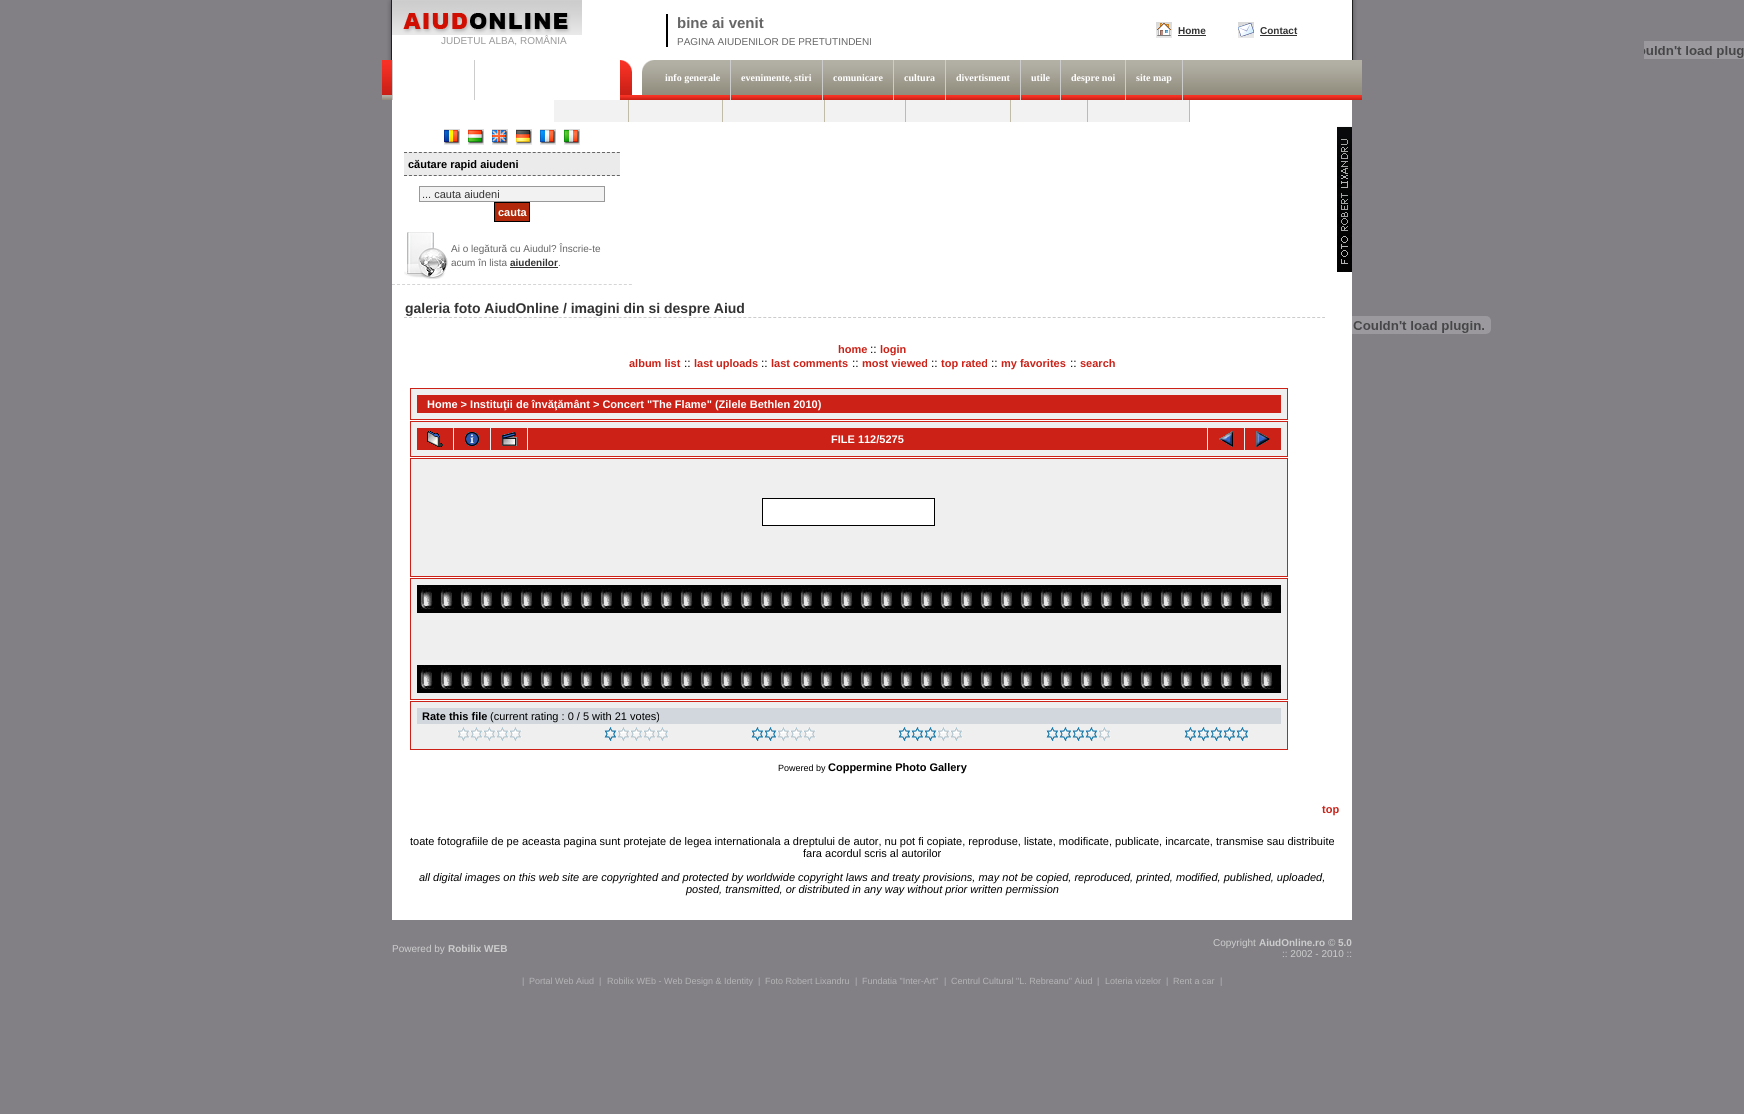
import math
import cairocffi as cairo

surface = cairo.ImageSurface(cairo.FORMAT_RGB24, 1744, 1114)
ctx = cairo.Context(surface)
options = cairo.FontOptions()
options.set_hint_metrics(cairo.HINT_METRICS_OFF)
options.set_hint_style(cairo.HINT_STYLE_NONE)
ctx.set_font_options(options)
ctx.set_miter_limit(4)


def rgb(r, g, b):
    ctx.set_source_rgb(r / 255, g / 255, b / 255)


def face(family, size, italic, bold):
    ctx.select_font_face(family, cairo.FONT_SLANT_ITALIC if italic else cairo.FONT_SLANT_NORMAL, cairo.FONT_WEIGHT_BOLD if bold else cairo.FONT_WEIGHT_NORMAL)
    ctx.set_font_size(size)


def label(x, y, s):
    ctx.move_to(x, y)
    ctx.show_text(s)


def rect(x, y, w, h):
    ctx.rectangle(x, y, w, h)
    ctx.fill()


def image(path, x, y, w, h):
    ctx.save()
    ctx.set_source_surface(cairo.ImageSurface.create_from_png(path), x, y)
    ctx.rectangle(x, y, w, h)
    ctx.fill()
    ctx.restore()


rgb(130, 128, 133)
ctx.paint()
image('image0.png', 382, 0, 10, 100)
rgb(255, 255, 255)
rect(392, 0, 960, 920)
rgb(0, 0, 0)
rect(666, 14, 2, 33)
face('Liberation Sans', 15, 0, 1)
rgb(102, 102, 102)
label(677, 28, 'bine ai venit')
face('Liberation Sans', 10, 0, 0)
label(677, 45, 'PAGINA AIUDENILOR DE PRETUTINDENI')
image('image1.png', 1156, 22, 16, 16)
face('Liberation Sans', 10, 0, 1)
rgb(51, 51, 51)
label(1178, 34, 'Home')
rect(1178, 35, 28, 1)
image('image2.png', 1238, 22, 16, 16)
label(1260, 34, 'Contact')
rect(1260, 35, 37, 1)
image('image3.png', 392, 0, 190, 35)
face('Liberation Sans', 10, 0, 0)
rgb(153, 153, 153)
label(441, 44, 'JUDETUL ALBA, ROMÂNIA')
rgb(204, 204, 204)
rect(392, 60, 1, 40)
rect(474, 60, 1, 40)
image('image4.png', 620, 60, 12, 40)
image('image5.png', 632, 60, 23, 40)
image('image6.png', 632, 60, 22, 35)
image('image7.png', 655, 60, 693, 40)
rect(730, 60, 1, 40)
face('Liberation Serif', 10, 0, 1)
rgb(255, 255, 255)
label(665, 81, 'info generale')
rgb(204, 204, 204)
rect(822, 60, 1, 40)
rgb(255, 255, 255)
label(741, 81, 'evenimente, stiri')
rgb(204, 204, 204)
rect(893, 60, 1, 40)
rgb(255, 255, 255)
label(833, 81, 'comunicare')
rgb(204, 204, 204)
rect(945, 60, 1, 40)
rgb(255, 255, 255)
label(904, 81, 'cultura')
rgb(204, 204, 204)
rect(1020, 60, 1, 40)
rgb(255, 255, 255)
label(956, 81, 'divertisment')
rgb(204, 204, 204)
rect(1060, 60, 1, 40)
rgb(255, 255, 255)
label(1031, 81, 'utile')
rgb(204, 204, 204)
rect(1125, 60, 1, 40)
rgb(255, 255, 255)
label(1071, 81, 'despre noi')
rgb(204, 204, 204)
rect(1182, 60, 1, 40)
rgb(255, 255, 255)
label(1136, 81, 'site map')
image('image8.png', 1348, 60, 4, 40)
rgb(242, 242, 242)
rect(554, 100, 635, 22)
rgb(193, 188, 167)
rect(628, 100, 1, 22)
rect(722, 100, 1, 22)
rect(824, 100, 1, 22)
rect(905, 100, 1, 22)
rect(1010, 100, 1, 22)
rect(1087, 100, 1, 22)
rect(1189, 100, 1, 22)
ctx.new_path()
ctx.move_to(392, 284.5)
ctx.line_to(632, 284.5)
rgb(213, 213, 213)
ctx.set_line_width(1)
ctx.set_dash([3, 2.04])
ctx.stroke()
image('image9.png', 444, 129, 16, 16)
image('image10.png', 468, 129, 16, 16)
image('image11.png', 492, 129, 16, 16)
image('image12.png', 516, 129, 16, 16)
image('image13.png', 540, 129, 16, 16)
image('image14.png', 564, 129, 16, 16)
rgb(235, 235, 235)
rect(404, 152, 216, 24)
ctx.new_path()
ctx.move_to(404, 152.5)
ctx.line_to(620, 152.5)
rgb(102, 102, 102)
ctx.set_dash([3, 1.95])
ctx.stroke()
ctx.new_path()
ctx.move_to(404, 175.5)
ctx.line_to(620, 175.5)
ctx.stroke()
face('Liberation Sans', 11, 0, 1)
rgb(0, 0, 0)
label(408, 168, 'căutare rapid aiudeni')
rgb(242, 242, 242)
ctx.rectangle(419.5, 186.5, 185, 15)
ctx.fill_preserve()
rgb(153, 153, 153)
ctx.set_dash([])
ctx.stroke()
face('Liberation Sans', 11, 0, 0)
rgb(51, 51, 51)
label(422, 198, '... cauta aiudeni')
rgb(177, 41, 10)
ctx.rectangle(494.5, 202.5, 35, 19)
ctx.fill_preserve()
rgb(0, 0, 0)
ctx.stroke()
face('Liberation Sans', 11, 0, 1)
rgb(255, 255, 255)
label(498, 216, 'cauta')
image('image15.png', 404, 232, 44, 47)
face('Liberation Sans', 10, 0, 0)
rgb(102, 102, 102)
label(451, 252, 'Ai o legătură cu Aiudul? Înscrie-te')
label(451, 266, 'acum în lista')
face('Liberation Sans', 10, 0, 1)
rgb(51, 51, 51)
label(510, 266, 'aiudenilor')
rect(510, 267, 48, 1)
face('Liberation Sans', 10, 0, 0)
rgb(102, 102, 102)
label(558, 266, '.')
image('image16.png', 1337, 126, 15, 146)
ctx.new_path()
ctx.move_to(404, 317.5)
ctx.line_to(1325, 317.5)
rgb(204, 204, 204)
ctx.set_dash([3, 1.99])
ctx.stroke()
face('Liberation Sans', 14, 0, 1)
rgb(51, 51, 51)
label(405, 313, 'galeria foto AiudOnline / imagini din si despre Aiud')
face('Liberation Sans', 11, 0, 1)
rgb(203, 33, 23)
label(838, 353, 'home')
face('Liberation Sans', 12, 0, 0)
rgb(0, 0, 0)
label(870, 353, '::')
face('Liberation Sans', 11, 0, 1)
rgb(203, 33, 23)
label(880, 353, 'login')
label(629, 367, 'album list')
face('Liberation Sans', 12, 0, 0)
rgb(0, 0, 0)
label(684, 367, '::')
face('Liberation Sans', 11, 0, 1)
rgb(203, 33, 23)
label(694, 367, 'last uploads')
face('Liberation Sans', 12, 0, 0)
rgb(0, 0, 0)
label(761, 367, '::')
face('Liberation Sans', 11, 0, 1)
rgb(203, 33, 23)
label(771, 367, 'last comments')
face('Liberation Sans', 12, 0, 0)
rgb(0, 0, 0)
label(852, 367, '::')
face('Liberation Sans', 11, 0, 1)
rgb(203, 33, 23)
label(862, 367, 'most viewed')
face('Liberation Sans', 12, 0, 0)
rgb(0, 0, 0)
label(931, 367, '::')
face('Liberation Sans', 11, 0, 1)
rgb(203, 33, 23)
label(941, 367, 'top rated')
face('Liberation Sans', 12, 0, 0)
rgb(0, 0, 0)
label(991, 367, '::')
face('Liberation Sans', 11, 0, 1)
rgb(203, 33, 23)
label(1001, 367, 'my favorites')
face('Liberation Sans', 12, 0, 0)
rgb(0, 0, 0)
label(1070, 367, '::')
face('Liberation Sans', 11, 0, 1)
rgb(203, 33, 23)
label(1080, 367, 'search')
rgb(239, 239, 239)
ctx.rectangle(410.5, 388.5, 877, 31)
ctx.fill_preserve()
rgb(203, 33, 23)
ctx.set_dash([])
ctx.stroke()
rect(417, 395, 864, 18)
rgb(255, 255, 255)
label(427, 408, 'Home > Instituţii de învăţământ > Concert "The Flame" (Zilele Bethlen 2010)')
rgb(239, 239, 239)
ctx.rectangle(410.5, 421.5, 877, 35)
ctx.fill_preserve()
rgb(203, 33, 23)
ctx.stroke()
rect(417, 428, 36, 22)
image('image17.png', 427, 431, 16, 16)
rect(454, 428, 36, 22)
image('image18.png', 465, 432, 14, 14)
rect(491, 428, 36, 22)
image('image19.png', 502, 432, 15, 14)
rect(528, 428, 679, 22)
rgb(255, 255, 255)
label(831, 443, 'FILE 112/5275')
rgb(203, 33, 23)
rect(1208, 428, 36, 22)
image('image20.png', 1219, 431, 14, 16)
rect(1245, 428, 36, 22)
image('image21.png', 1256, 431, 14, 16)
rgb(239, 239, 239)
ctx.rectangle(410.5, 458.5, 877, 118)
ctx.fill_preserve()
rgb(203, 33, 23)
ctx.stroke()
rgb(255, 255, 255)
ctx.rectangle(762.5, 498.5, 172, 27)
ctx.fill_preserve()
rgb(0, 0, 0)
ctx.stroke()
rgb(239, 239, 239)
ctx.rectangle(410.5, 578.5, 877, 121)
ctx.fill_preserve()
rgb(203, 33, 23)
ctx.stroke()
image('image22.png', 417, 585, 864, 28)
image('image22.png', 417, 665, 864, 28)
rgb(239, 239, 239)
ctx.rectangle(410.5, 701.5, 877, 48)
ctx.fill_preserve()
rgb(203, 33, 23)
ctx.stroke()
rgb(209, 215, 220)
rect(417, 708, 864, 16)
rgb(0, 0, 0)
label(422, 720, 'Rate this file')
face('Liberation Sans', 11, 0, 0)
label(490, 720, '(current rating : 0 / 5 with 21 votes)')
image('image23.png', 457, 727, 65, 14)
image('image24.png', 604, 727, 65, 14)
image('image25.png', 751, 727, 65, 14)
image('image26.png', 898, 727, 65, 14)
image('image27.png', 1046, 727, 65, 14)
image('image28.png', 1184, 727, 65, 14)
face('Liberation Sans', 9, 0, 0)
label(778, 771, 'Powered by')
face('Liberation Sans', 11, 0, 1)
label(828, 771, 'Coppermine Photo Gallery')
rgb(203, 33, 23)
label(1322, 813, 'top')
face('Liberation Sans', 11, 0, 0)
rgb(0, 0, 0)
label(410, 845, 'toate fotografiile de pe aceasta pagina sunt protejate de legea internationala a dreptului de autor, nu pot fi copiate, reproduse, listate, modificate, publicate, incarcate, transmise sau distribuite')
label(803, 857, 'fara acordul scris al autorilor')
face('Liberation Sans', 11, 1, 0)
label(419, 881, 'all digital images on this web site are copyrighted and protected by worldwide copyright laws and treaty provisions, may not be copied, reproduced, printed, modified, published, uploaded,')
label(686, 893, 'posted, transmitted, or distributed in any way without prior written permission')
image('image29.png', 1352, 0, 10, 100)
image('image30.png', 1644, 41, 100, 18)
image('image31.png', 1352, 316, 139, 18)
face('Liberation Sans', 10, 0, 0)
rgb(204, 204, 204)
label(392, 952, 'Powered by')
face('Liberation Sans', 10, 0, 1)
label(448, 952, 'Robilix WEB')
face('Liberation Sans', 10, 0, 0)
label(1213, 946, 'Copyright')
face('Liberation Sans', 10, 0, 1)
label(1259, 946, 'AiudOnline.ro')
face('Liberation Sans', 10, 0, 0)
label(1328, 946, '©')
face('Liberation Sans', 10, 0, 1)
label(1338, 946, '5.0')
face('Liberation Sans', 10, 0, 0)
label(1282, 957, ':: 2002 - 2010 ::')
face('Liberation Sans', 9, 0, 0)
rgb(180, 179, 181)
label(522, 984, '|')
label(529, 984, 'Portal Web Aiud')
label(599, 984, '|')
label(607, 984, 'Robilix WEb - Web Design & Identity')
label(758, 984, '|')
label(765, 984, 'Foto Robert Lixandru')
label(855, 984, '|')
label(862, 984, 'Fundatia "Inter-Art"')
label(944, 984, '|')
label(951, 984, 'Centrul Cultural "L. Rebreanu" Aiud')
label(1097, 984, '|')
label(1105, 984, 'Loteria vizelor')
label(1166, 984, '|')
label(1173, 984, 'Rent a car')
label(1220, 984, '|')
surface.write_to_png('render.png')
